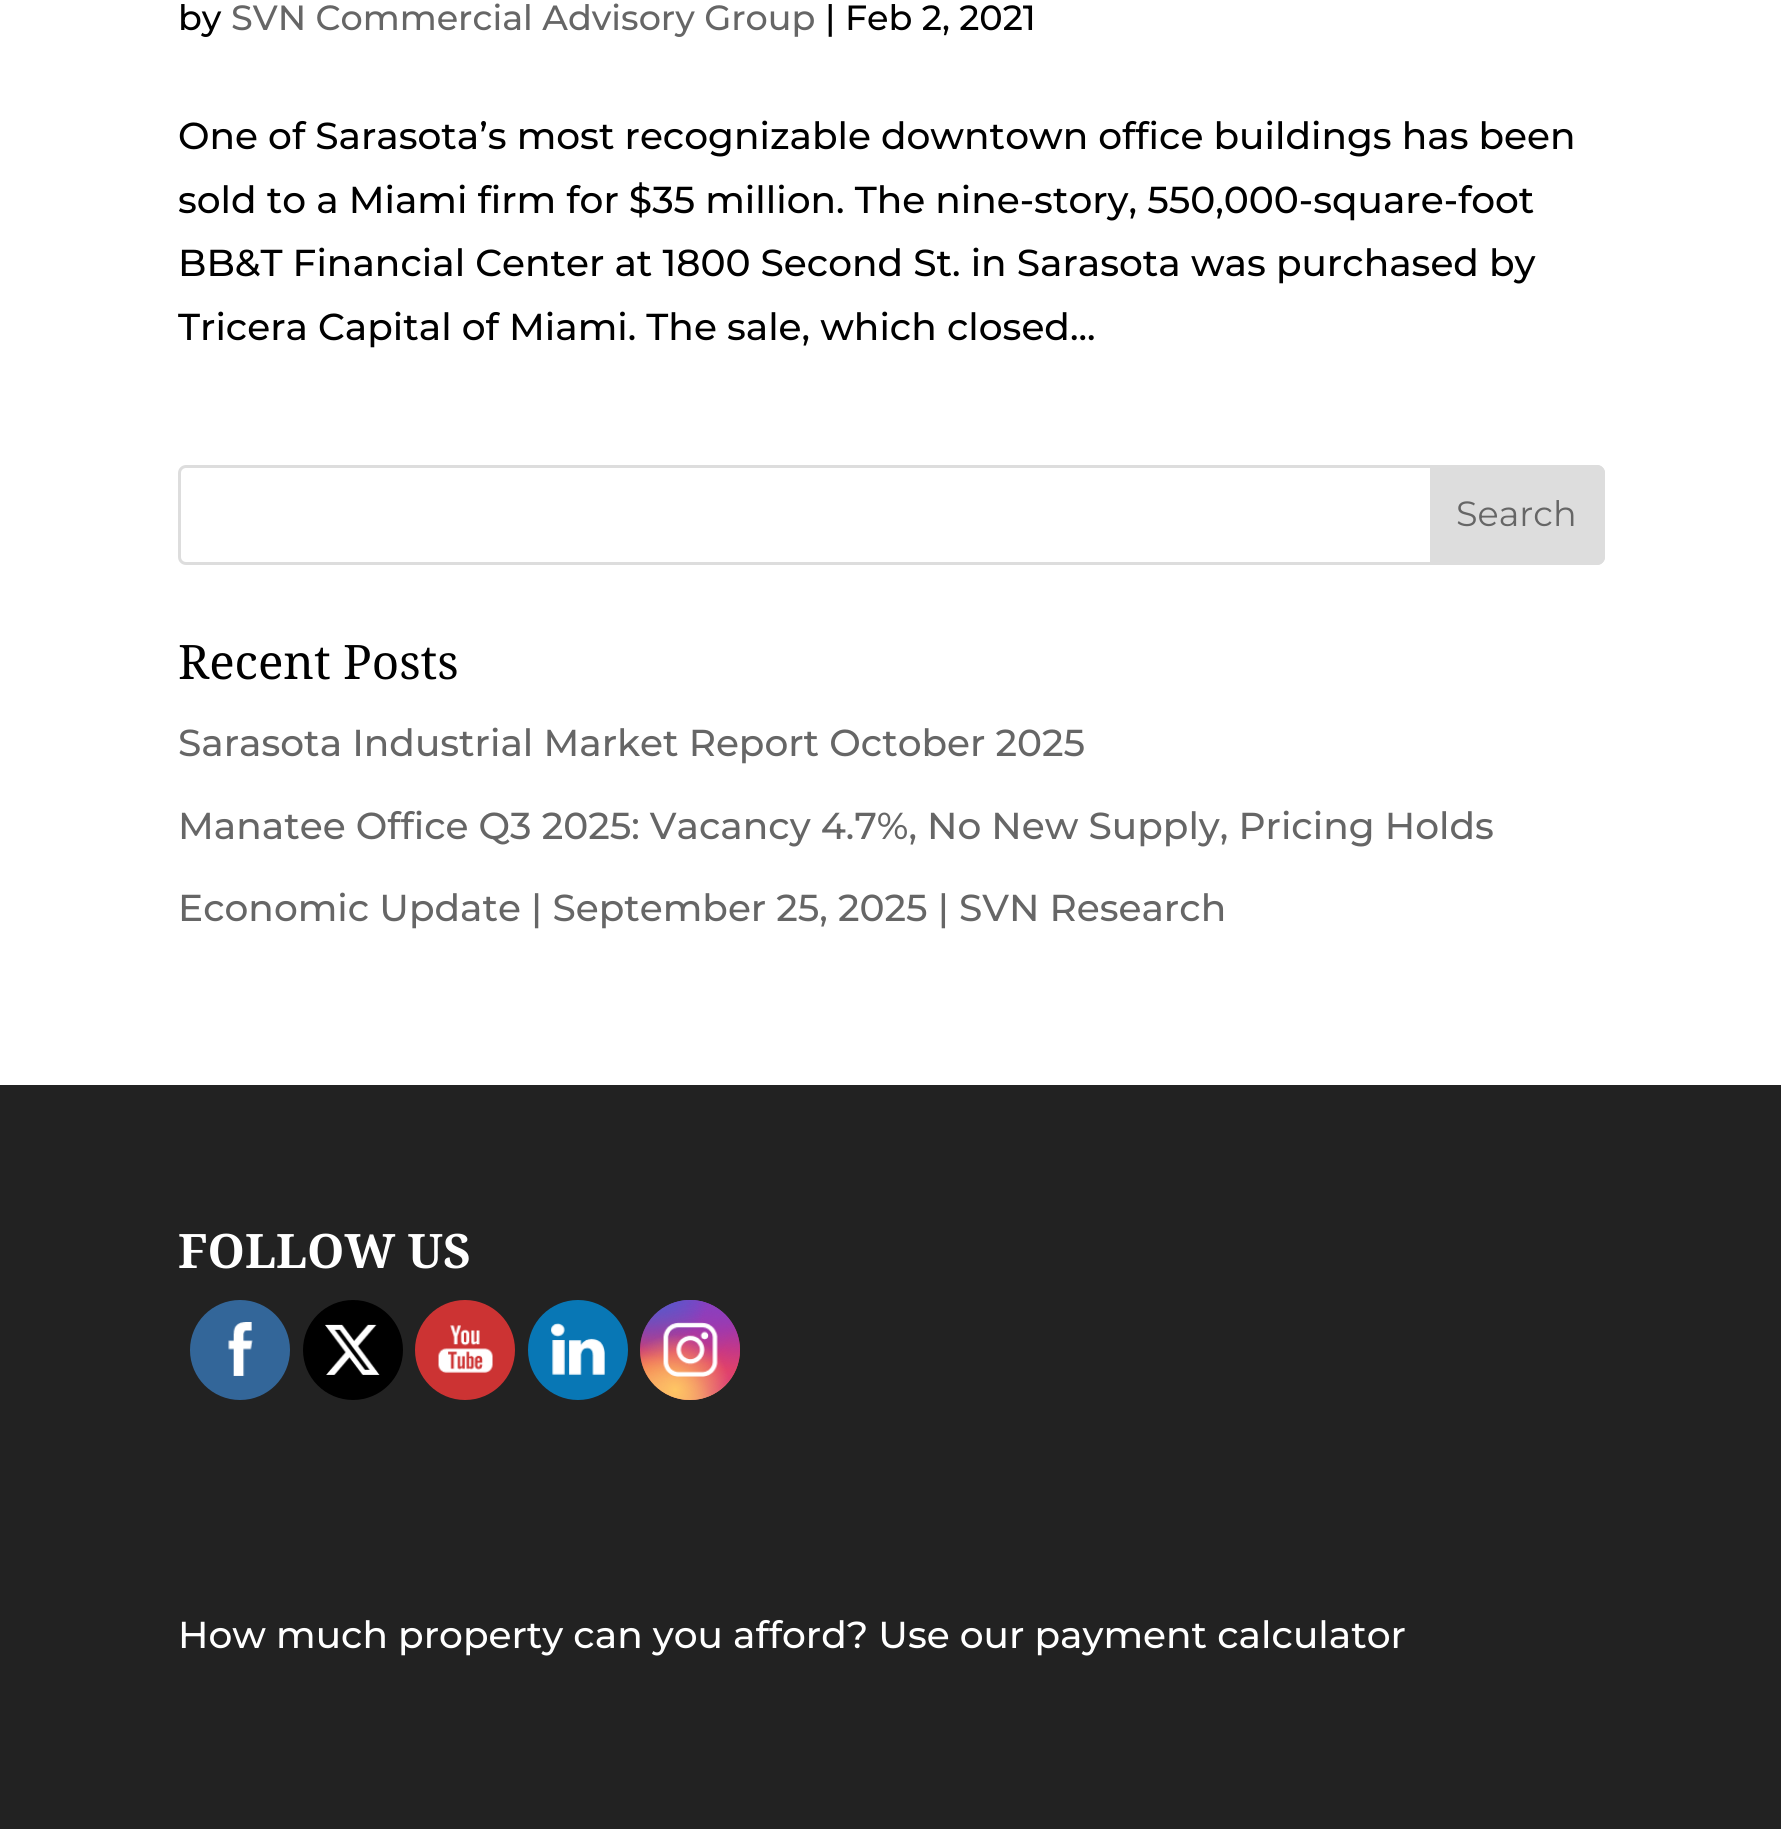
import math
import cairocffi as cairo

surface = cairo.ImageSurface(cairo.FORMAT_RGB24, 1781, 1829)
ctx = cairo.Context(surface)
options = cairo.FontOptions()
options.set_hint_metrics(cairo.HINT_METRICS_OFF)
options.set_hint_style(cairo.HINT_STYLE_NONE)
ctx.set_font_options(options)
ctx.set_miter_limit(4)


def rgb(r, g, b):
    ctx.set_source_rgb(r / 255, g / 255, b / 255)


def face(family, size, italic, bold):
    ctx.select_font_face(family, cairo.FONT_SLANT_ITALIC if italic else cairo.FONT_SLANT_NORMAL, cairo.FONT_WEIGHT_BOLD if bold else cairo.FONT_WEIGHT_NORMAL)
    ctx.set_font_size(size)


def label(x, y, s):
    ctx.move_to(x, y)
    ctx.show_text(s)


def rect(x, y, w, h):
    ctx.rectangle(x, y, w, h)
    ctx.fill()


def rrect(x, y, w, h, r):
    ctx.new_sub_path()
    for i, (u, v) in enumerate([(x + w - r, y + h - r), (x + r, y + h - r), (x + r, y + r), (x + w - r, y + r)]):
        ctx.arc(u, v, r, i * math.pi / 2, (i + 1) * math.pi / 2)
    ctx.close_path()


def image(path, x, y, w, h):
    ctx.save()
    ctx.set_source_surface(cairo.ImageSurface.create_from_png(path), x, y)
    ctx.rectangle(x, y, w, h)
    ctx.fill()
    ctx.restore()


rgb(255, 255, 255)
ctx.paint()
face('Montserrat Thin', 35, 0, 0)
rgb(0, 0, 0)
label(178, 30, 'by')
rgb(102, 102, 102)
label(231, 30, 'SVN Commercial Advisory Group')
rgb(0, 0, 0)
label(825, 30, '| Feb 2, 2021')
face('Montserrat Thin', 37.5, 0, 0)
label(178, 149, 'One of Sarasota’s most recognizable downtown office buildings has been')
label(178, 213, 'sold to a Miami firm for $35 million. The nine-story, 550,000-square-foot')
label(178, 276, 'BB&T Financial Center at 1800 Second St. in Sarasota was purchased by')
label(178, 340, 'Tricera Capital of Miami. The sale, which closed...')
rrect(179.5, 466.5, 1424, 97, 6.5)
rgb(221, 221, 221)
ctx.set_line_width(3)
ctx.stroke()
ctx.new_path()
ctx.move_to(1431.5, 466.5)
ctx.line_to(1597, 466.5)
ctx.curve_to(1600.5, 466.5, 1603.5, 469.5, 1603.5, 473)
ctx.line_to(1603.5, 557)
ctx.curve_to(1603.5, 560.5, 1600.5, 563.5, 1597, 563.5)
ctx.line_to(1431.5, 563.5)
ctx.close_path()
ctx.fill_preserve()
ctx.stroke()
face('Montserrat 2 Thin', 35, 0, 0)
rgb(102, 102, 102)
label(1456, 526, 'Search')
face('Noto Serif', 47.5, 0, 0)
rgb(0, 0, 0)
label(178, 679, 'Recent Posts')
face('Montserrat Thin', 37.5, 0, 0)
rgb(102, 102, 102)
label(178, 756, 'Sarasota Industrial Market Report October 2025')
label(178, 839, 'Manatee Office Q3 2025: Vacancy 4.7%, No New Supply, Pricing Holds')
label(178, 921, 'Economic Update | September 25, 2025 | SVN Research')
rgb(34, 34, 34)
rect(0, 1085, 1781, 744)
face('Noto Serif', 47.5, 0, 1)
rgb(255, 255, 255)
label(178, 1268, 'FOLLOW US')
rgb(51, 102, 153)
ctx.new_path()
ctx.arc(240, 1350, 50, 0, 2 * math.pi)
ctx.fill()
image('image0.png', 228, 1322, 25, 54)
rgb(0, 0, 0)
ctx.arc(353, 1350, 50, 0, 2 * math.pi)
ctx.fill()
image('image1.png', 325, 1324, 55, 51)
rgb(204, 51, 51)
ctx.arc(465, 1350, 50, 0, 2 * math.pi)
ctx.fill()
image('image2.png', 438, 1325, 55, 48)
rgb(8, 119, 181)
ctx.arc(578, 1350, 50, 0, 2 * math.pi)
ctx.fill()
image('image3.png', 551, 1323, 54, 52)
gradient = cairo.LinearGradient(690, 1300, 690, 1400)
gradient.add_color_stop_rgba(0, 0.396, 0.349, 0.792, 1)
gradient.add_color_stop_rgba(0.3, 0.737, 0.192, 0.561, 1)
gradient.add_color_stop_rgba(0.5, 0.89, 0.247, 0.373, 1)
gradient.add_color_stop_rgba(0.7, 0.969, 0.463, 0.22, 1)
gradient.add_color_stop_rgba(1, 0.996, 0.776, 0.427, 1)
ctx.set_source(gradient)
ctx.arc(690, 1350, 50, 0, 2 * math.pi)
ctx.fill()
gradient = cairo.RadialGradient(740, 1400, 0, 740, 1400, 141)
gradient.add_color_stop_rgba(0, 0.851, 0.192, 0.478, 1)
gradient.add_color_stop_rgba(1, 0.851, 0.192, 0.478, 0)
ctx.set_source(gradient)
ctx.arc(690, 1350, 50, 0, 2 * math.pi)
ctx.fill()
gradient = cairo.RadialGradient(0, 0, 0, 0, 0, 1)
gradient.set_matrix(cairo.Matrix(1 / 85, 0, 0, 1 / 170, -1 * 700 / 85, -1 * 1280 / 170))
gradient.add_color_stop_rgba(0, 0.537, 0.239, 0.761, 1)
gradient.add_color_stop_rgba(0.5, 0.537, 0.239, 0.761, 0)
ctx.set_source(gradient)
ctx.arc(690, 1350, 50, 0, 2 * math.pi)
ctx.fill()
gradient = cairo.RadialGradient(740, 1300, 0, 740, 1300, 141)
gradient.add_color_stop_rgba(0, 0.537, 0.239, 0.761, 1)
gradient.add_color_stop_rgba(0.5, 0.537, 0.239, 0.761, 0)
ctx.set_source(gradient)
ctx.arc(690, 1350, 50, 0, 2 * math.pi)
ctx.fill()
gradient = cairo.RadialGradient(0, 0, 0, 0, 0, 1)
gradient.set_matrix(cairo.Matrix(1 / 113, 0, 0, 1 / 212, -1 * 660 / 113, -1 * 1250 / 212))
gradient.add_color_stop_rgba(0, 0.322, 0.345, 0.812, 1)
gradient.add_color_stop_rgba(0.5, 0.322, 0.345, 0.812, 0)
ctx.set_source(gradient)
ctx.arc(690, 1350, 50, 0, 2 * math.pi)
ctx.fill()
gradient = cairo.RadialGradient(0, 0, 0, 0, 0, 1)
gradient.set_matrix(cairo.Matrix(1 / 141, 0, 0, 1 / 177, -1 * 640 / 141, -1 * 1275 / 177))
gradient.add_color_stop_rgba(0, 0.322, 0.345, 0.812, 1)
gradient.add_color_stop_rgba(0.5, 0.322, 0.345, 0.812, 0)
ctx.set_source(gradient)
ctx.arc(690, 1350, 50, 0, 2 * math.pi)
ctx.fill()
gradient = cairo.RadialGradient(640, 1440, 0, 640, 1440, 172)
gradient.add_color_stop_rgba(0, 0.996, 0.773, 0.392, 1)
gradient.add_color_stop_rgba(0.5, 0.996, 0.773, 0.392, 0)
ctx.set_source(gradient)
ctx.arc(690, 1350, 50, 0, 2 * math.pi)
ctx.fill()
gradient = cairo.RadialGradient(675, 1390, 0, 675, 1390, 111)
gradient.add_color_stop_rgba(0, 0.996, 0.773, 0.392, 1)
gradient.add_color_stop_rgba(0.5, 0.996, 0.773, 0.392, 0)
ctx.set_source(gradient)
ctx.arc(690, 1350, 50, 0, 2 * math.pi)
ctx.fill()
image('image4.png', 663, 1322, 55, 55)
face('Montserrat Thin', 37.5, 0, 0)
rgb(255, 255, 255)
label(178, 1648, 'How much property can you afford? Use our payment calculator')
surface.write_to_png('render.png')
